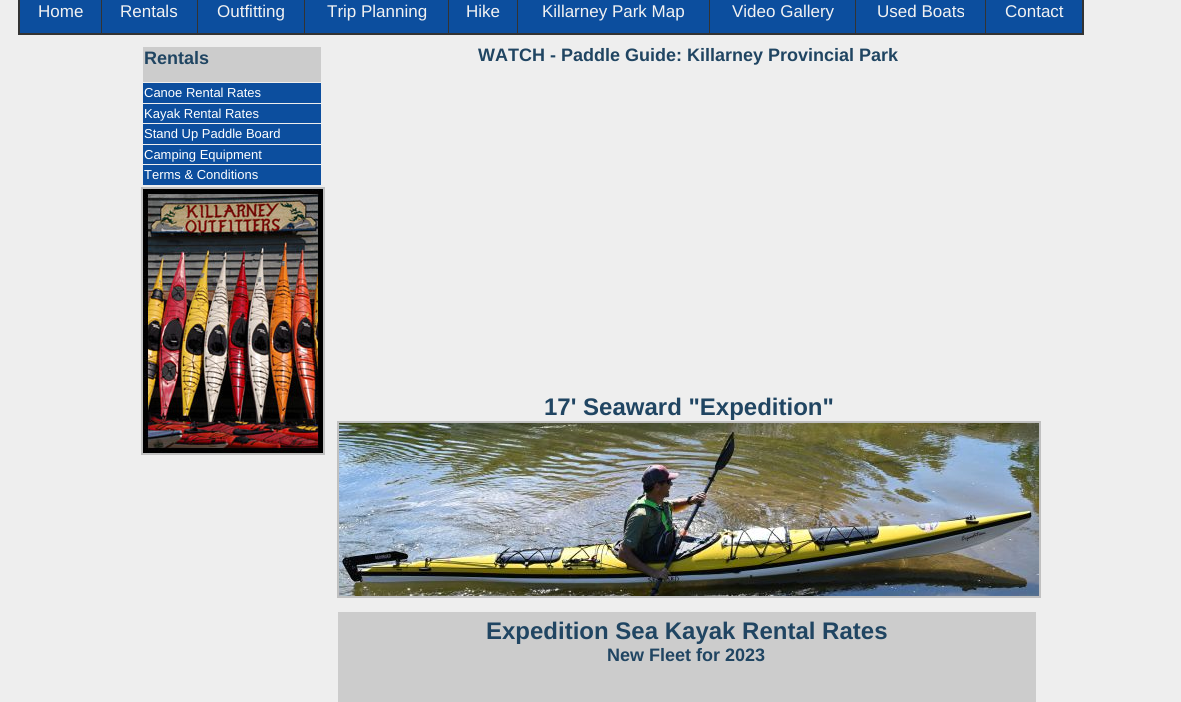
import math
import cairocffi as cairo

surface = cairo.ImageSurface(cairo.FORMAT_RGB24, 1181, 702)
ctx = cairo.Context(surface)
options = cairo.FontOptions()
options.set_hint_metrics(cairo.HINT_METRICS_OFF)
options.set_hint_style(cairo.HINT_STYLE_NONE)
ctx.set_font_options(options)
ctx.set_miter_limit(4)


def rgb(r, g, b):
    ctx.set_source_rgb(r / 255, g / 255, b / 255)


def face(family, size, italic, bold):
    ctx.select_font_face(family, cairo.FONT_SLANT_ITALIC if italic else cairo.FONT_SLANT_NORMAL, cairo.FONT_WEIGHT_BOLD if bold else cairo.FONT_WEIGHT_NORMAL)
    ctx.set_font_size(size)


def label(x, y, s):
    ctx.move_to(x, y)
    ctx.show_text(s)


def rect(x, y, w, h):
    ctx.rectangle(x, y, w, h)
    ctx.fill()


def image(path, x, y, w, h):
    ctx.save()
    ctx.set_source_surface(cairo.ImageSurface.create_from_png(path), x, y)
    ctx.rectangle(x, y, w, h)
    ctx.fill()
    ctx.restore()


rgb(238, 238, 238)
ctx.paint()
rgb(51, 51, 51)
rect(18, 0, 1066, 35)
rgb(12, 78, 158)
rect(20, 0, 81, 33)
face('Liberation Sans', 17, 0, 0)
rgb(242, 242, 242)
label(38, 17, 'Home')
rgb(12, 78, 158)
rect(102, 0, 95, 33)
rgb(242, 242, 242)
label(120, 17, 'Rentals')
rgb(12, 78, 158)
rect(198, 0, 106, 33)
rgb(242, 242, 242)
label(217, 17, 'Outfitting')
rgb(12, 78, 158)
rect(305, 0, 143, 33)
rgb(242, 242, 242)
label(327, 17, 'Trip Planning')
rgb(12, 78, 158)
rect(449, 0, 68, 33)
rgb(242, 242, 242)
label(466, 17, 'Hike')
rgb(12, 78, 158)
rect(518, 0, 191, 33)
rgb(242, 242, 242)
label(542, 17, 'Killarney Park Map')
rgb(12, 78, 158)
rect(710, 0, 145, 33)
rgb(242, 242, 242)
label(732, 17, 'Video Gallery')
rgb(12, 78, 158)
rect(856, 0, 129, 33)
rgb(242, 242, 242)
label(877, 17, 'Used Boats')
rgb(12, 78, 158)
rect(986, 0, 96, 33)
rgb(242, 242, 242)
label(1005, 17, 'Contact')
rgb(204, 204, 204)
rect(143, 47, 178, 35)
face('Liberation Sans', 18, 0, 1)
rgb(32, 69, 98)
label(144, 64, 'Rentals')
rgb(12, 78, 158)
rect(143, 83, 178, 20)
face('Liberation Sans', 13, 0, 0)
rgb(255, 255, 255)
label(144, 97, 'Canoe Rental Rates')
rgb(12, 78, 158)
rect(143, 104, 178, 19)
rgb(255, 255, 255)
label(144, 118, 'Kayak Rental Rates')
rgb(12, 78, 158)
rect(143, 124, 178, 20)
rgb(255, 255, 255)
label(144, 138, 'Stand Up Paddle Board')
rgb(12, 78, 158)
rect(143, 145, 178, 19)
rgb(255, 255, 255)
label(144, 159, 'Camping Equipment')
rgb(12, 78, 158)
rect(143, 165, 178, 20)
rgb(255, 255, 255)
label(144, 179, 'Terms & Conditions')
ctx.rectangle(142, 188, 182, 266)
rgb(192, 192, 192)
ctx.stroke()
image('image0.png', 143, 189, 180, 264)
face('Liberation Sans', 18, 0, 1)
rgb(32, 69, 98)
label(478, 61, 'WATCH - Paddle Guide: Killarney Provincial Park')
face('Liberation Sans', 24, 0, 1)
label(544, 415, '17\' Seaward "Expedition"')
ctx.rectangle(338, 422, 702, 175)
rgb(192, 192, 192)
ctx.stroke()
image('image1.png', 339, 423, 700, 173)
rgb(204, 204, 204)
rect(338, 612, 698, 90)
rgb(32, 69, 98)
label(486, 639, 'Expedition Sea Kayak Rental Rates')
face('Liberation Sans', 18, 0, 1)
label(607, 661, 'New Fleet for 2023')
surface.write_to_png('render.png')
